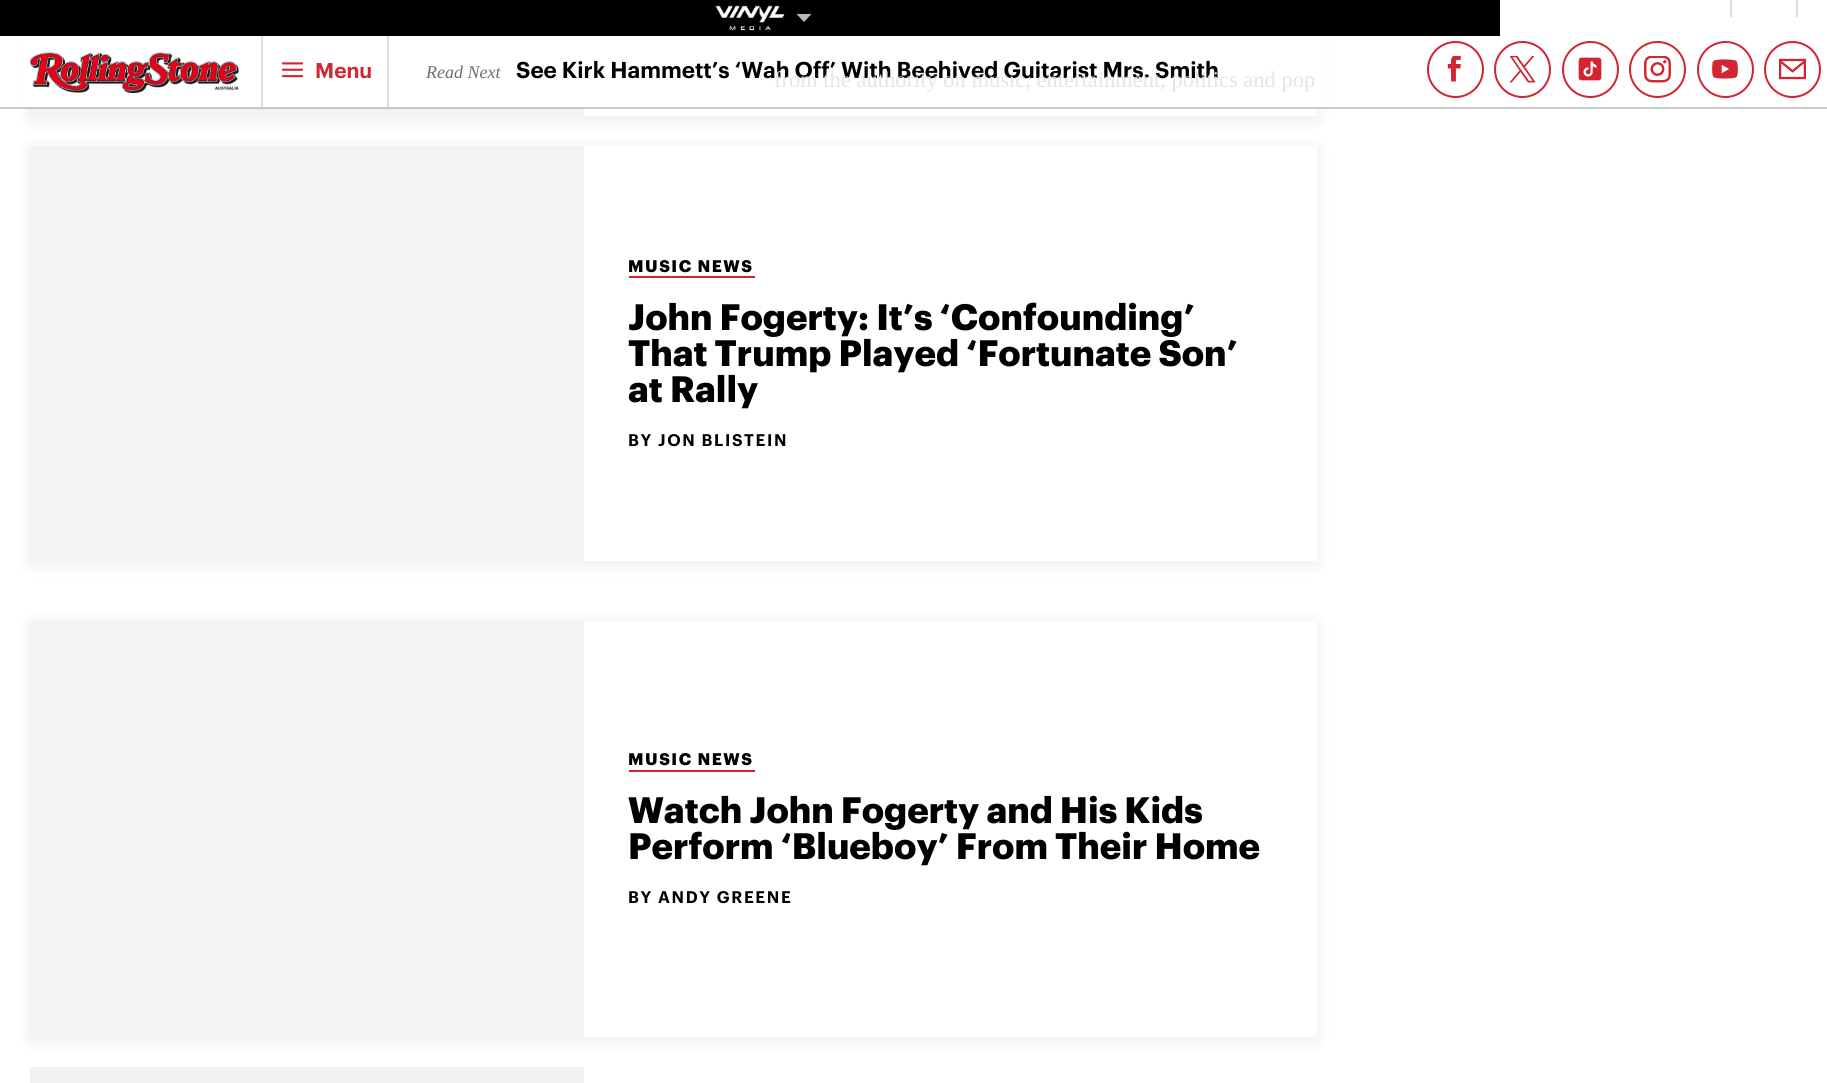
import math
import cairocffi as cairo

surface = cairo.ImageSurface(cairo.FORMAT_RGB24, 1827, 1083)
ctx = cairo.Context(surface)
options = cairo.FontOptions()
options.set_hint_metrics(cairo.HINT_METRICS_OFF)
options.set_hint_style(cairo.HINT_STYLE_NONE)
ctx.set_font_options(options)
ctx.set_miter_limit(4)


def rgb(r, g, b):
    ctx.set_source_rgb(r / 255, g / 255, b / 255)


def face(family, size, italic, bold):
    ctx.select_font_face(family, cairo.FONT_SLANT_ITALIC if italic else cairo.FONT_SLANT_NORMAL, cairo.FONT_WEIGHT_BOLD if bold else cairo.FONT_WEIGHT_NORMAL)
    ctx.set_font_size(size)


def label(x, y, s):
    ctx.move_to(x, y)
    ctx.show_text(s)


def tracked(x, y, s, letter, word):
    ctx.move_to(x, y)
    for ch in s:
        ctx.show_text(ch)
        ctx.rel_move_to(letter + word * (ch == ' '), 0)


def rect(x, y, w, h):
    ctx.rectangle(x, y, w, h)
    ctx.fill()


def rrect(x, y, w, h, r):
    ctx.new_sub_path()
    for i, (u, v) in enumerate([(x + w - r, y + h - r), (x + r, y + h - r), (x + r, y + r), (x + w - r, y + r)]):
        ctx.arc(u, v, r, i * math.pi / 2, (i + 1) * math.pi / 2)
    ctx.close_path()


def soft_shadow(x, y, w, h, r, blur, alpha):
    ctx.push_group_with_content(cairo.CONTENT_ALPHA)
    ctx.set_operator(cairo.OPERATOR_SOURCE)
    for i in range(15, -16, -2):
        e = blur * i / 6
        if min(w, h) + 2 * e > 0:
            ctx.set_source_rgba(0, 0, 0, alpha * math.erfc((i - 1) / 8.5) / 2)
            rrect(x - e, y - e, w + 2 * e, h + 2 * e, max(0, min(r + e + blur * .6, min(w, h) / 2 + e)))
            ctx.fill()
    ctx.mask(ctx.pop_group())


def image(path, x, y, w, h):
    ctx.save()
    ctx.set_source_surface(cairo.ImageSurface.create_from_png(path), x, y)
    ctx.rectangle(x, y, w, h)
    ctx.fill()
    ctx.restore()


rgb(255, 255, 255)
ctx.paint()
rgb(0, 0, 0)
soft_shadow(30, -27, 1287, 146, 0, 9, 0.08)
rgb(255, 255, 255)
rect(20, 0, 1307, 108)
rgb(221, 222, 228)
rect(261, 35, 2, 72)
rect(387, 35, 2, 72)
rgb(0, 0, 0)
rect(0, 0, 1500, 36)
image('image0.png', 715, 5, 70, 26)
rgb(187, 187, 187)
ctx.new_path()
ctx.move_to(796.5, 14)
ctx.line_to(811.5, 14)
ctx.line_to(804, 22)
ctx.close_path()
ctx.fill()
rgb(255, 255, 255)
rect(584, 108, 733, 8)
rgb(242, 242, 242)
rect(30, 108, 554, 8)
ctx.set_source_rgba(0, 0, 0, 0.2)
rect(0, 107, 1827, 2)
rgb(221, 222, 228)
rect(1796, 0, 2, 17)
rect(1730, 0, 2, 17)
image('image1.png', 30, 52, 209, 41)
image('image2.png', 281, 62, 23, 16)
face('Graphik SemiBold', 21, 0, 0)
rgb(211, 37, 49)
label(315, 78, 'Menu')
face('Liberation Serif', 18, 1, 0)
rgb(111, 111, 111)
label(426, 78, 'Read Next')
face('Graphik SemiBold', 22.5, 0, 0)
rgb(0, 0, 0)
label(516, 78, 'See Kirk Hammett’s ‘Wah Off’ With Beehived Guitarist Mrs. Smith')
ctx.new_path()
ctx.arc(1455.5, 69.5, 27.5, 0, 2 * math.pi)
rgb(211, 37, 49)
ctx.stroke()
image('image3.png', 1447, 56, 14, 26)
ctx.arc(1522.5, 69.5, 27.5, 0, 2 * math.pi)
ctx.stroke()
image('image4.png', 1509, 56, 27, 27)
ctx.arc(1590.5, 69.5, 27.5, 0, 2 * math.pi)
ctx.stroke()
image('image5.png', 1578, 57, 24, 24)
ctx.arc(1657.5, 69.5, 27.5, 0, 2 * math.pi)
ctx.stroke()
image('image6.png', 1644, 56, 27, 27)
ctx.arc(1725.5, 69.5, 27.5, 0, 2 * math.pi)
ctx.stroke()
image('image7.png', 1712, 59, 26, 20)
ctx.arc(1792.5, 69.5, 27.5, 0, 2 * math.pi)
ctx.stroke()
image('image8.png', 1779, 58, 27, 22)
face('Liberation Serif', 22.5, 0, 0)
rgb(229, 229, 229)
label(774, 87, 'from the authority on music, entertainment, politics and pop')
ctx.save()
ctx.set_fill_rule(cairo.FILL_RULE_EVEN_ODD)
ctx.new_path()
ctx.move_to(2, 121)
ctx.line_to(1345, 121)
ctx.line_to(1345, 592)
ctx.line_to(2, 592)
ctx.close_path()
ctx.move_to(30, 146)
ctx.line_to(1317, 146)
ctx.line_to(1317, 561)
ctx.line_to(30, 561)
ctx.close_path()
ctx.clip()
rgb(0, 0, 0)
soft_shadow(30, 149, 1287, 415, 0, 9, 0.08)
ctx.restore()
rgb(243, 243, 243)
rect(30, 146, 554, 415)
rgb(211, 37, 49)
rect(629, 276, 126, 2)
face('Graphik', 16.5, 0, 1)
rgb(0, 0, 0)
tracked(628, 272, 'MUSIC NEWS', 1.5, 0)
face('Graphik', 36, 0, 1)
label(628, 330, 'John Fogerty: It’s ‘Confounding’')
label(628, 366, 'That Trump Played ‘Fortunate Son’')
label(628, 402, 'at Rally')
face('Graphik SemiBold', 16.5, 0, 0)
tracked(628, 446, 'BY JON BLISTEIN', 1.6, 0)
rgb(0, 0, 0)
soft_shadow(30, 624, 1287, 416, 0, 9, 0.08)
rgb(255, 255, 255)
rect(584, 621, 733, 416)
rgb(243, 243, 243)
rect(30, 621, 554, 416)
rgb(211, 37, 49)
rect(629, 770, 126, 2)
face('Graphik', 16.5, 0, 1)
rgb(0, 0, 0)
tracked(628, 765, 'MUSIC NEWS', 1.5, 0)
face('Graphik', 36, 0, 1)
label(628, 823, 'Watch John Fogerty and His Kids')
label(628, 859, 'Perform ‘Blueboy’ From Their Home')
face('Graphik SemiBold', 16.5, 0, 0)
tracked(628, 903, 'BY ANDY GREENE', 1.6, 0)
rgb(242, 242, 242)
rect(30, 1067, 554, 16)
surface.write_to_png('render.png')
